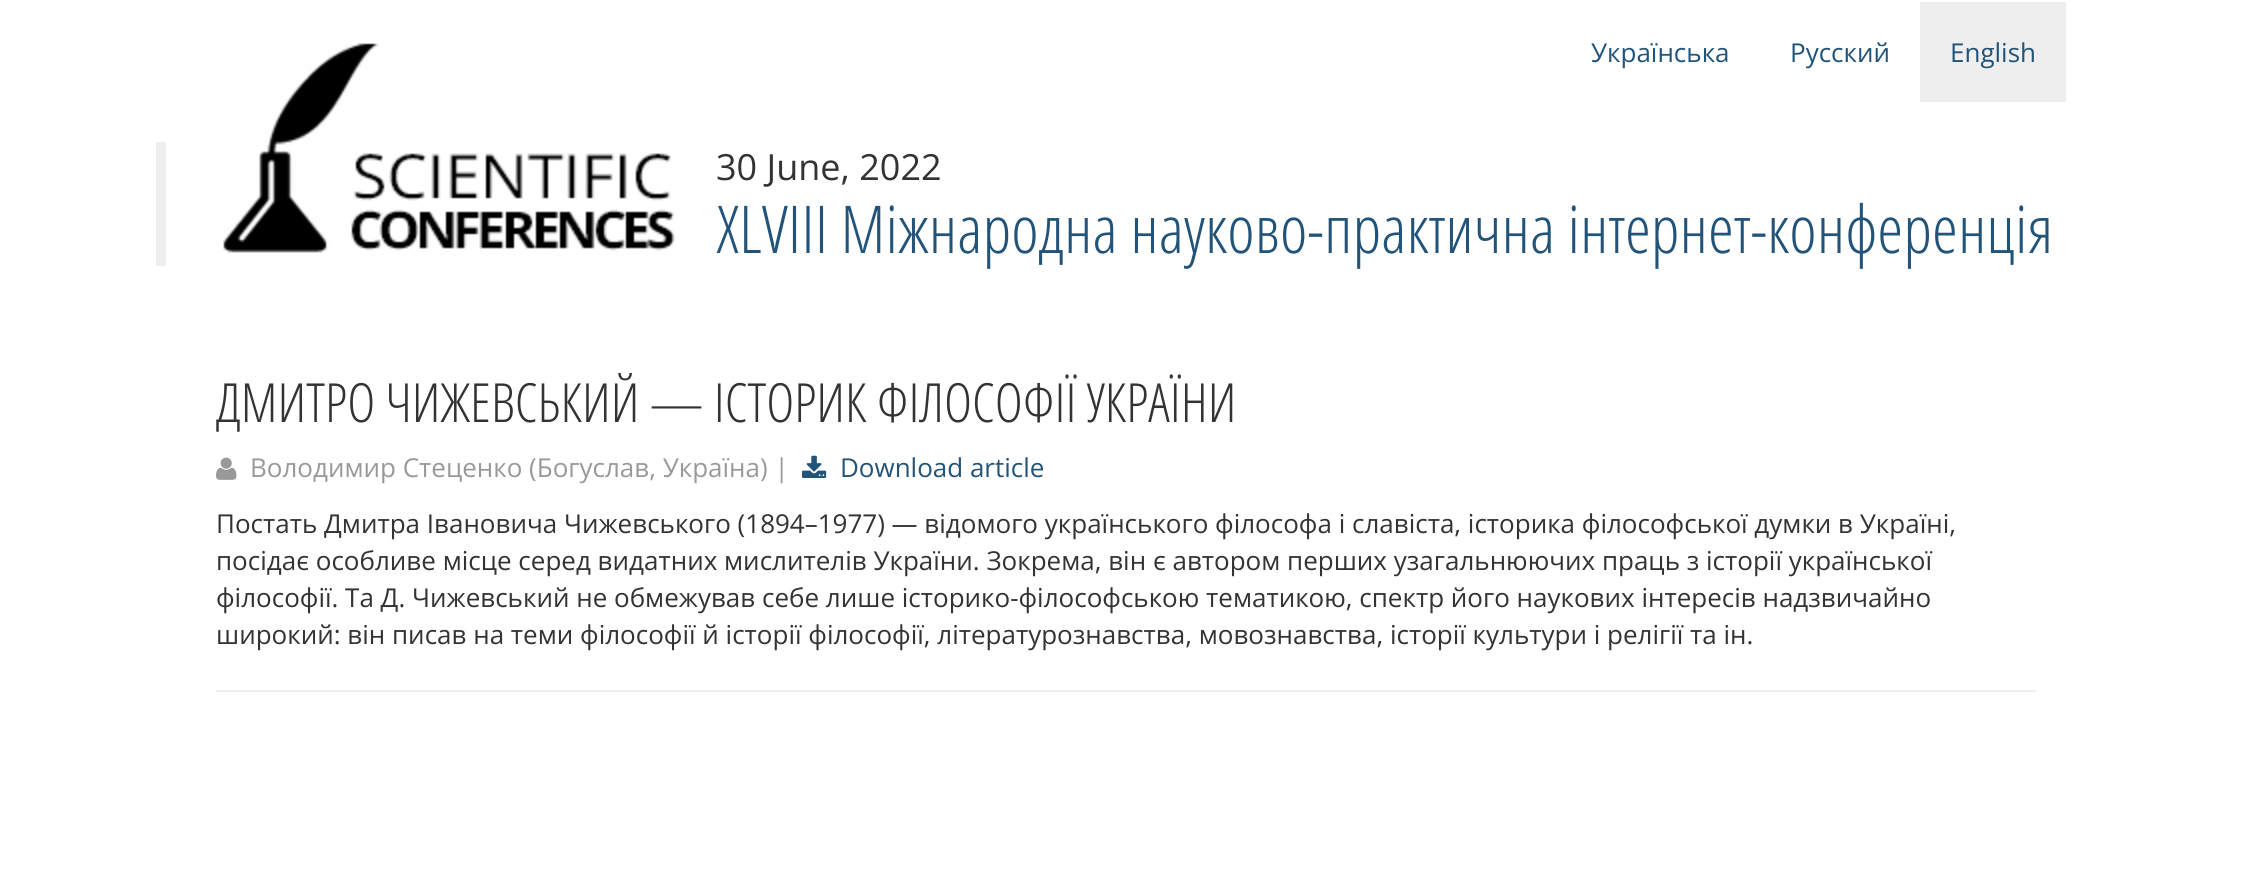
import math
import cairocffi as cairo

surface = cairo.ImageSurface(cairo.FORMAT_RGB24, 2252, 885)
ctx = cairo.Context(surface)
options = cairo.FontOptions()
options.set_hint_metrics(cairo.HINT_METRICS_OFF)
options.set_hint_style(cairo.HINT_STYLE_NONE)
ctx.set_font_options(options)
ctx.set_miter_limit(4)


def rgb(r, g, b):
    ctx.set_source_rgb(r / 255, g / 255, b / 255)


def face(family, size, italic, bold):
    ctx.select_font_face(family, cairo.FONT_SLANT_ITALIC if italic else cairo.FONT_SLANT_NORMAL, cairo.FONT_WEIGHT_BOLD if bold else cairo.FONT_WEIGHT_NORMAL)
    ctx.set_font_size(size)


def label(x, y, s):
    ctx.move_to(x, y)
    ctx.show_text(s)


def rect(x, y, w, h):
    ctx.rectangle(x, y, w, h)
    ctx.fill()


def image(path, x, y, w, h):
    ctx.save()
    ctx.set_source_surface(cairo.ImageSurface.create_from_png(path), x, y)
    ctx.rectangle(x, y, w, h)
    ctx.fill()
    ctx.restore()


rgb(255, 255, 255)
ctx.paint()
image('image0.png', 223, 43, 452, 210)
face('Open Sans', 26, 0, 0)
rgb(34, 83, 120)
label(1591, 62, 'Українська')
label(1790, 62, 'Русский')
rgb(238, 238, 238)
rect(1920, 2, 146, 100)
rgb(34, 83, 120)
label(1950, 62, 'English')
rgb(238, 238, 238)
rect(156, 142, 10, 124)
face('Open Sans', 36, 0, 0)
rgb(51, 51, 51)
label(716, 180, '30 June, 2022')
face('Open Sans Condensed Light', 66, 0, 0)
rgb(34, 83, 120)
label(716, 253, 'XLVІІІ Міжнародна науково-практична інтернет-конференція')
face('Open Sans Condensed Light', 54, 0, 0)
rgb(51, 51, 51)
label(216, 422, 'ДМИТРО ЧИЖЕВСЬКИЙ — ІСТОРИК ФІЛОСОФІЇ УКРАЇНИ')
image('image1.png', 216, 457, 21, 23)
face('Open Sans', 26, 0, 0)
rgb(153, 153, 153)
label(250, 477, 'Володимир Стеценко (Богуслав, Україна) |')
image('image2.png', 802, 455, 25, 23)
rgb(34, 83, 120)
label(840, 477, 'Download article')
rgb(51, 51, 51)
label(216, 533, 'Постать Дмитра Івановича Чижевського (1894–1977) — відомого українського філософа і славіста, історика філософської думки в Україні,')
label(216, 570, 'посідає особливе місце серед видатних мислителів України. Зокрема, він є автором перших узагальнюючих праць з історії української')
label(216, 607, 'філософії. Та Д. Чижевський не обмежував себе лише історико-філософською тематикою, спектр його наукових інтересів надзвичайно')
label(216, 644, 'широкий: він писав на теми філософії й історії філософії, літературознавства, мовознавства, історії культури і релігії та ін.')
rgb(238, 238, 238)
rect(216, 690, 1820, 2)
surface.write_to_png('render.png')
